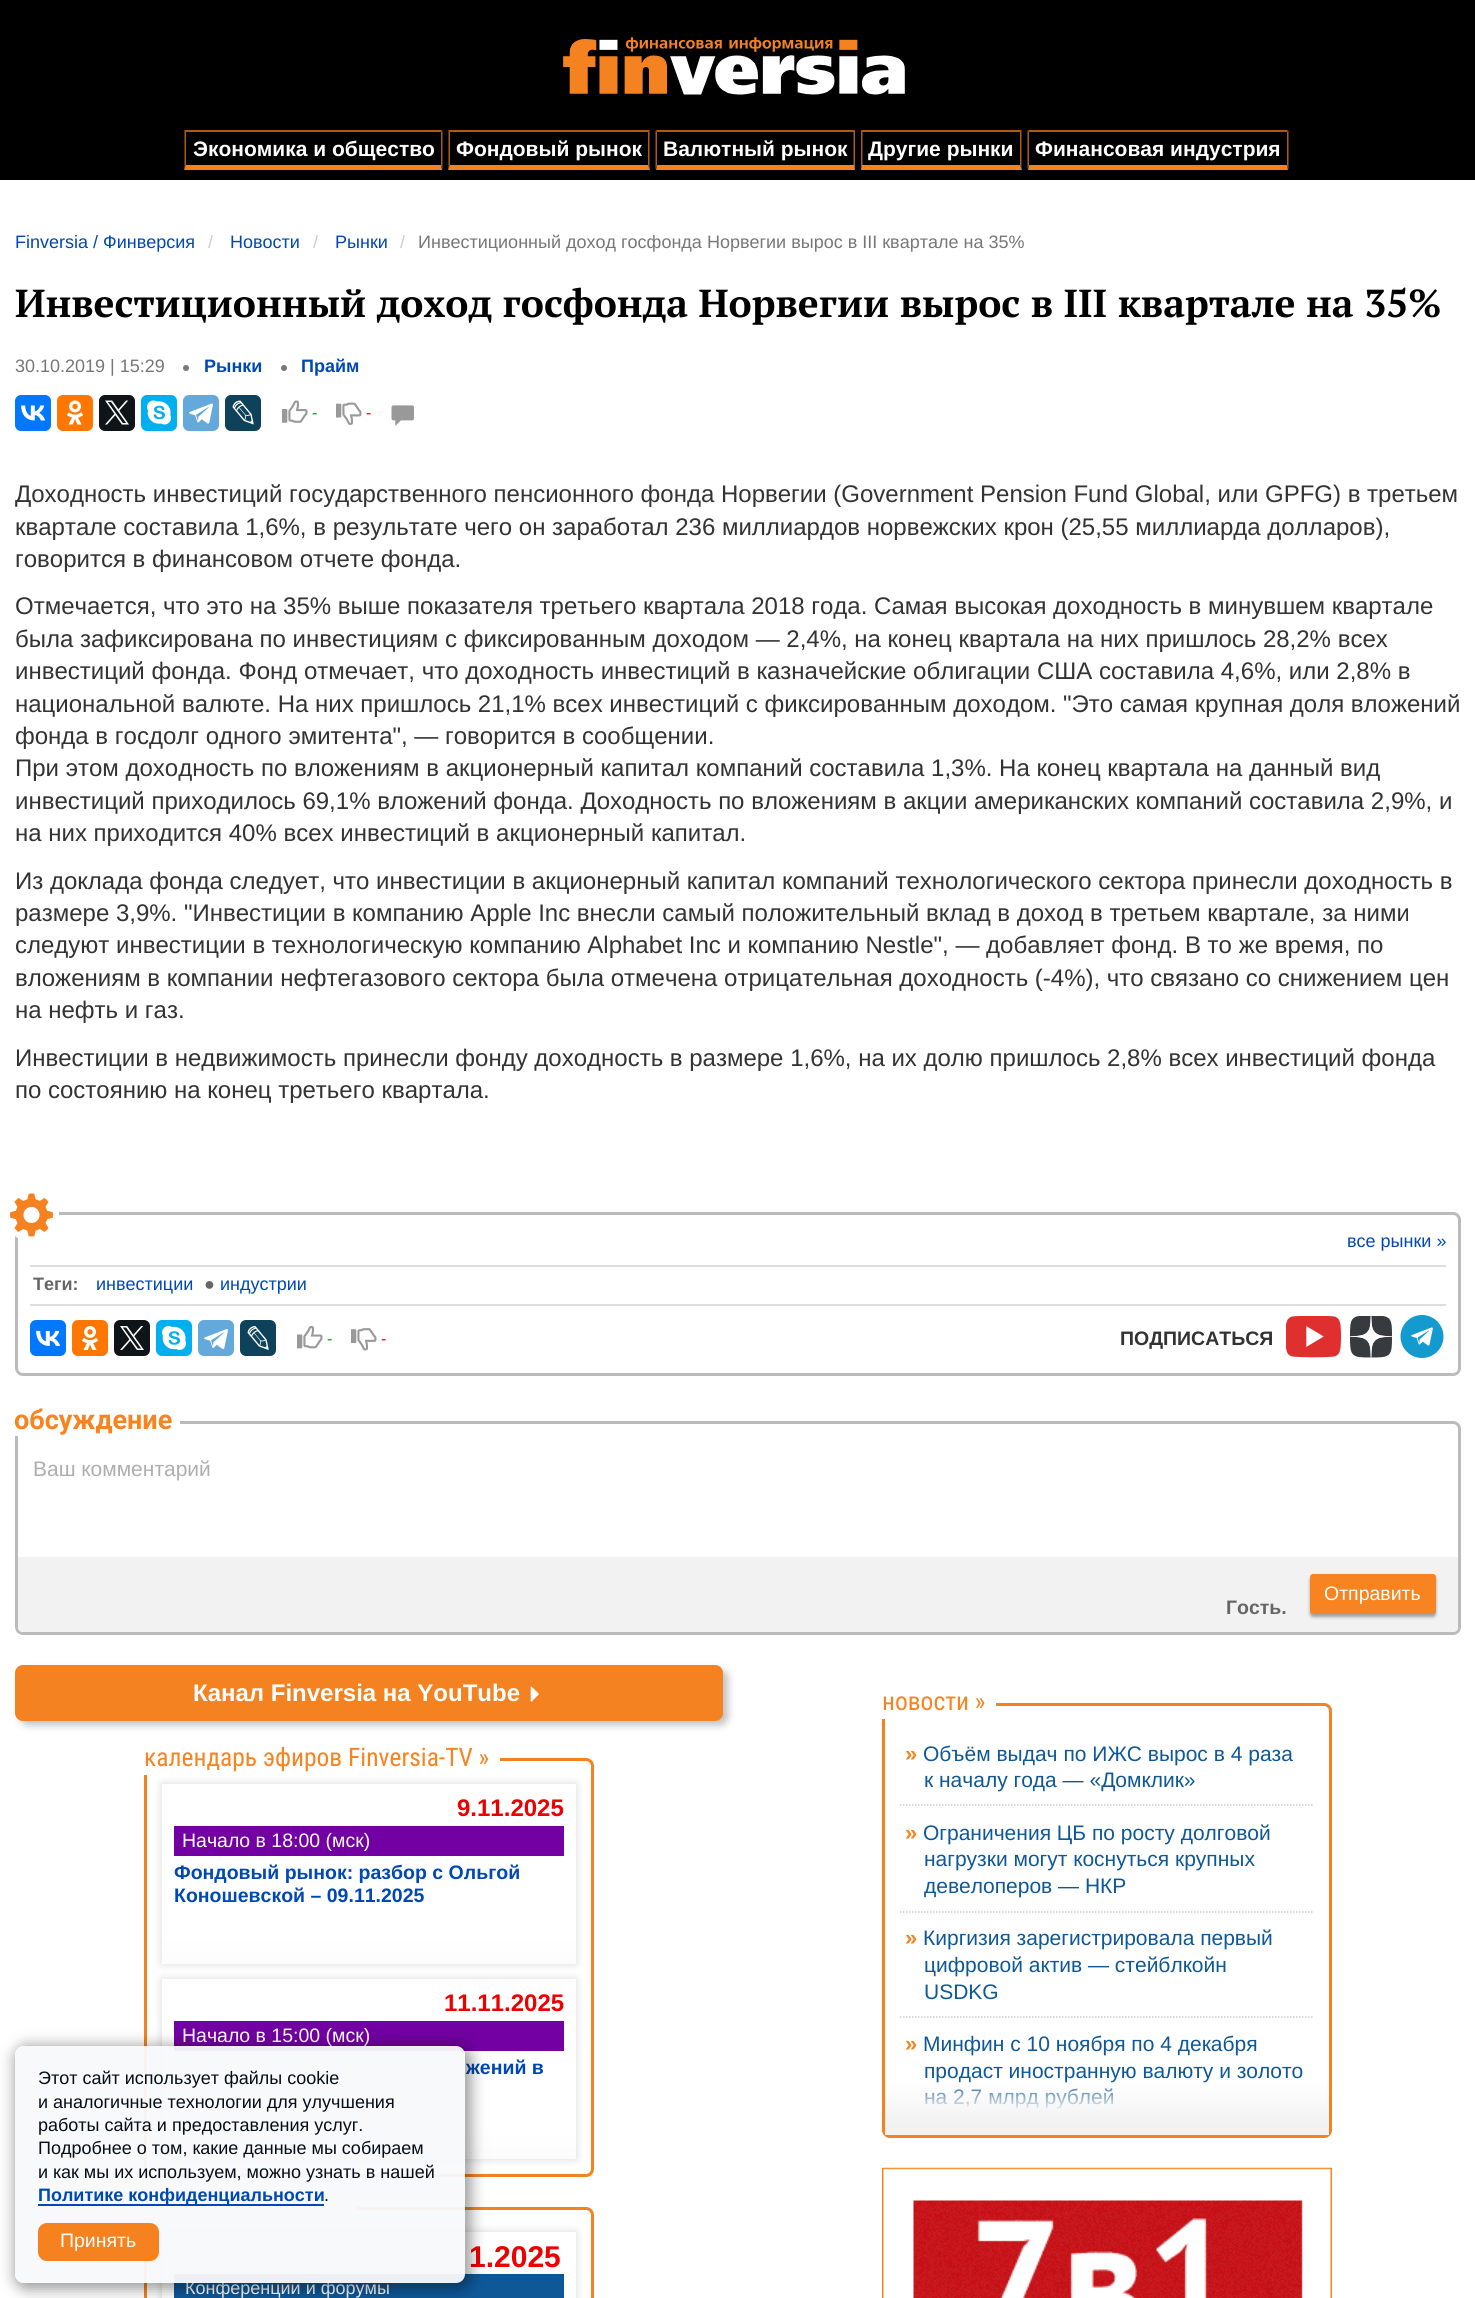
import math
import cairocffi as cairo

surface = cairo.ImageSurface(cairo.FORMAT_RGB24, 1475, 2298)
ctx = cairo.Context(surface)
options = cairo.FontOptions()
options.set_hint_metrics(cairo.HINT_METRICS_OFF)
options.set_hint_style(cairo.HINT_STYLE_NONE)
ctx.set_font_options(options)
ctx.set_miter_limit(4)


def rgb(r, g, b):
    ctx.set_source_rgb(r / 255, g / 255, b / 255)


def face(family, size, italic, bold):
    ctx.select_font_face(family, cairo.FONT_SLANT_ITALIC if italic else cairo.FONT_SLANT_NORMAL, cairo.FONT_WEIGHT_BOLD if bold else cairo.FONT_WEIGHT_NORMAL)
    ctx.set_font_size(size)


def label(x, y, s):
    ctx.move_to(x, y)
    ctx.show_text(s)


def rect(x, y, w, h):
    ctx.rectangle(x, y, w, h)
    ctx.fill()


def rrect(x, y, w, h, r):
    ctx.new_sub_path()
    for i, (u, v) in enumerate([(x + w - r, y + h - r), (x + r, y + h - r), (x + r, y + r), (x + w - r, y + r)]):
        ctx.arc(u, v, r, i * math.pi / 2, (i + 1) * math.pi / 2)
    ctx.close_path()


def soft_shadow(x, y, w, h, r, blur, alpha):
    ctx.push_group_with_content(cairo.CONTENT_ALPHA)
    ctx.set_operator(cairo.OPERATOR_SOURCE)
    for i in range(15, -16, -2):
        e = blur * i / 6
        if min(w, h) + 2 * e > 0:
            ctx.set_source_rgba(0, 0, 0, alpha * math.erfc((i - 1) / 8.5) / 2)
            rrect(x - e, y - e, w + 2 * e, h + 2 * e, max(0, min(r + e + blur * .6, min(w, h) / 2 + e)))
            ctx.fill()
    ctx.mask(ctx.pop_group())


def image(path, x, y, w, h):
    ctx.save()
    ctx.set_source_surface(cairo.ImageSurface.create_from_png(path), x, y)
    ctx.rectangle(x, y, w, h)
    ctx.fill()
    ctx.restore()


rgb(255, 255, 255)
ctx.paint()
rgb(0, 0, 0)
rect(0, 0, 1475, 180)
image('image0.png', 563, 37, 342, 58)
rgb(172, 91, 22)
ctx.new_path()
ctx.move_to(184, 130)
ctx.line_to(442, 130)
ctx.line_to(441, 132)
ctx.line_to(186, 132)
ctx.close_path()
ctx.fill()
ctx.set_source_rgba(0.961, 0.51, 0.125, 0.7)
ctx.new_path()
ctx.move_to(442.5, 130.5)
ctx.line_to(442.5, 169.5)
ctx.line_to(441, 165)
ctx.line_to(441, 132)
ctx.close_path()
ctx.fill()
rgb(245, 130, 32)
ctx.new_path()
ctx.move_to(442, 170)
ctx.line_to(184, 170)
ctx.line_to(186, 165)
ctx.line_to(441, 165)
ctx.close_path()
ctx.fill()
ctx.set_source_rgba(0.961, 0.51, 0.125, 0.7)
ctx.new_path()
ctx.move_to(184.5, 169.5)
ctx.line_to(184.5, 130.5)
ctx.line_to(186, 132)
ctx.line_to(186, 165)
ctx.close_path()
ctx.fill()
face('Liberation Sans', 21, 0, 1)
rgb(255, 255, 255)
label(193, 156, 'Экономика и общество')
rgb(172, 91, 22)
ctx.new_path()
ctx.move_to(448, 130)
ctx.line_to(650, 130)
ctx.line_to(648, 132)
ctx.line_to(450, 132)
ctx.close_path()
ctx.fill()
ctx.set_source_rgba(0.961, 0.51, 0.125, 0.7)
ctx.new_path()
ctx.move_to(649.5, 130.5)
ctx.line_to(649.5, 169.5)
ctx.line_to(648, 165)
ctx.line_to(648, 132)
ctx.close_path()
ctx.fill()
rgb(245, 130, 32)
ctx.new_path()
ctx.move_to(650, 170)
ctx.line_to(448, 170)
ctx.line_to(450, 165)
ctx.line_to(648, 165)
ctx.close_path()
ctx.fill()
ctx.set_source_rgba(0.961, 0.51, 0.125, 0.7)
ctx.new_path()
ctx.move_to(448.5, 169.5)
ctx.line_to(448.5, 130.5)
ctx.line_to(450, 132)
ctx.line_to(450, 165)
ctx.close_path()
ctx.fill()
rgb(255, 255, 255)
label(456, 156, 'Фондовый рынок')
rgb(172, 91, 22)
ctx.new_path()
ctx.move_to(656, 130)
ctx.line_to(855, 130)
ctx.line_to(854, 132)
ctx.line_to(657, 132)
ctx.close_path()
ctx.fill()
ctx.set_source_rgba(0.961, 0.51, 0.125, 0.7)
ctx.new_path()
ctx.move_to(855, 130.5)
ctx.line_to(855, 169.5)
ctx.line_to(853.5, 165)
ctx.line_to(853.5, 132)
ctx.close_path()
ctx.fill()
rgb(245, 130, 32)
ctx.new_path()
ctx.move_to(855, 170)
ctx.line_to(656, 170)
ctx.line_to(657, 165)
ctx.line_to(854, 165)
ctx.close_path()
ctx.fill()
ctx.set_source_rgba(0.961, 0.51, 0.125, 0.7)
ctx.new_path()
ctx.move_to(655.5, 169.5)
ctx.line_to(655.5, 130.5)
ctx.line_to(657, 132)
ctx.line_to(657, 165)
ctx.close_path()
ctx.fill()
rgb(255, 255, 255)
label(663, 156, 'Валютный рынок')
rgb(172, 91, 22)
ctx.new_path()
ctx.move_to(861, 130)
ctx.line_to(1022, 130)
ctx.line_to(1020, 132)
ctx.line_to(862, 132)
ctx.close_path()
ctx.fill()
ctx.set_source_rgba(0.961, 0.51, 0.125, 0.7)
ctx.new_path()
ctx.move_to(1021.5, 130.5)
ctx.line_to(1021.5, 169.5)
ctx.line_to(1020, 165)
ctx.line_to(1020, 132)
ctx.close_path()
ctx.fill()
rgb(245, 130, 32)
ctx.new_path()
ctx.move_to(1022, 170)
ctx.line_to(861, 170)
ctx.line_to(862, 165)
ctx.line_to(1020, 165)
ctx.close_path()
ctx.fill()
ctx.set_source_rgba(0.961, 0.51, 0.125, 0.7)
ctx.new_path()
ctx.move_to(861, 169.5)
ctx.line_to(861, 130.5)
ctx.line_to(862.5, 132)
ctx.line_to(862.5, 165)
ctx.close_path()
ctx.fill()
rgb(255, 255, 255)
label(868, 156, 'Другие рынки')
rgb(172, 91, 22)
ctx.new_path()
ctx.move_to(1028, 130)
ctx.line_to(1288, 130)
ctx.line_to(1287, 132)
ctx.line_to(1029, 132)
ctx.close_path()
ctx.fill()
ctx.set_source_rgba(0.961, 0.51, 0.125, 0.7)
ctx.new_path()
ctx.move_to(1288.5, 130.5)
ctx.line_to(1288.5, 169.5)
ctx.line_to(1287, 165)
ctx.line_to(1287, 132)
ctx.close_path()
ctx.fill()
rgb(245, 130, 32)
ctx.new_path()
ctx.move_to(1288, 170)
ctx.line_to(1028, 170)
ctx.line_to(1029, 165)
ctx.line_to(1287, 165)
ctx.close_path()
ctx.fill()
ctx.set_source_rgba(0.961, 0.51, 0.125, 0.7)
ctx.new_path()
ctx.move_to(1027.5, 169.5)
ctx.line_to(1027.5, 130.5)
ctx.line_to(1029, 132)
ctx.line_to(1029, 165)
ctx.close_path()
ctx.fill()
rgb(255, 255, 255)
label(1035, 156, 'Финансовая индустрия')
face('Liberation Sans', 18, 0, 0)
rgb(0, 72, 179)
label(15, 248, 'Finversia / Финверсия')
rgb(204, 204, 204)
label(208, 248, '/')
rgb(0, 72, 179)
label(230, 248, 'Новости')
rgb(204, 204, 204)
label(313, 248, '/')
rgb(0, 72, 179)
label(335, 248, 'Рынки')
rgb(204, 204, 204)
label(400, 248, '/')
rgb(119, 119, 119)
label(418, 248, 'Инвестиционный доход госфонда Норвегии вырос в III квартале на 35%')
face('PT Serif', 39, 0, 1)
rgb(0, 0, 0)
label(15, 317, 'Инвестиционный доход госфонда Норвегии вырос в III квартале на 35%')
face('Liberation Sans', 18, 0, 0)
rgb(119, 119, 119)
label(15, 372, '30.10.2019 | 15:29')
rgb(121, 121, 121)
ctx.new_path()
ctx.arc(186, 368, 3, 0, 2 * math.pi)
ctx.fill()
face('Liberation Sans', 18, 0, 1)
rgb(0, 72, 179)
label(204, 372, 'Рынки')
rgb(121, 121, 121)
ctx.new_path()
ctx.arc(284, 368, 3, 0, 2 * math.pi)
ctx.fill()
rgb(0, 72, 179)
label(301, 372, 'Прайм')
rgb(0, 119, 255)
rrect(15, 395, 36, 36, 6)
ctx.fill()
image('image1.png', 21, 405, 24, 16)
rgb(255, 119, 0)
rrect(57, 395, 36, 36, 6)
ctx.fill()
image('image2.png', 67, 400, 16, 25)
rgb(15, 20, 25)
rrect(99, 395, 36, 36, 6)
ctx.fill()
image('image3.png', 105, 400, 24, 25)
rgb(0, 175, 240)
rrect(141, 395, 36, 36, 6)
ctx.fill()
image('image4.png', 147, 400, 24, 25)
rgb(100, 169, 220)
rrect(183, 395, 36, 36, 6)
ctx.fill()
image('image5.png', 189, 403, 24, 21)
rgb(13, 66, 90)
rrect(225, 395, 36, 36, 6)
ctx.fill()
image('image6.png', 232, 400, 22, 25)
image('image7.png', 282, 400, 26, 23)
face('Liberation Sans', 16, 0, 0)
rgb(0, 153, 0)
label(312, 418, '-')
image('image8.png', 336, 402, 26, 23)
rgb(255, 0, 0)
label(366, 418, '-')
image('image9.png', 391, 405, 23, 21)
face('Liberation Sans', 24, 0, 0)
rgb(51, 51, 51)
label(15, 502, 'Доходность инвестиций государственного пенсионного фонда Норвегии (Government Pension Fund Global, или GPFG) в третьем')
label(15, 535, 'квартале составила 1,6%, в результате чего он заработал 236 миллиардов норвежских крон (25,55 миллиарда долларов),')
label(15, 567, 'говорится в финансовом отчете фонда.')
label(15, 614, 'Отмечается, что это на 35% выше показателя третьего квартала 2018 года. Самая высокая доходность в минувшем квартале')
label(15, 647, 'была зафиксирована по инвестициям с фиксированным доходом — 2,4%, на конец квартала на них пришлось 28,2% всех')
label(15, 679, 'инвестиций фонда. Фонд отмечает, что доходность инвестиций в казначейские облигации США составила 4,6%, или 2,8% в')
label(15, 712, 'национальной валюте. На них пришлось 21,1% всех инвестиций с фиксированным доходом. "Это самая крупная доля вложений')
label(15, 744, 'фонда в госдолг одного эмитента", — говорится в сообщении.')
label(15, 776, 'При этом доходность по вложениям в акционерный капитал компаний составила 1,3%. На конец квартала на данный вид')
label(15, 809, 'инвестиций приходилось 69,1% вложений фонда. Доходность по вложениям в акции американских компаний составила 2,9%, и')
label(15, 841, 'на них приходится 40% всех инвестиций в акционерный капитал.')
label(15, 889, 'Из доклада фонда следует, что инвестиции в акционерный капитал компаний технологического сектора принесли доходность в')
label(15, 921, 'размере 3,9%. "Инвестиции в компанию Apple Inc внесли самый положительный вклад в доход в третьем квартале, за ними')
label(15, 953, 'следуют инвестиции в технологическую компанию Alphabet Inc и компанию Nestle", — добавляет фонд. В то же время, по')
label(15, 986, 'вложениям в компании нефтегазового сектора была отмечена отрицательная доходность (-4%), что связано со снижением цен')
label(15, 1018, 'на нефть и газ.')
label(15, 1066, 'Инвестиции в недвижимость принесли фонду доходность в размере 1,6%, на их долю пришлось 2,8% всех инвестиций фонда')
label(15, 1098, 'по состоянию на конец третьего квартала.')
rrect(16.5, 1213.5, 1443, 161, 6.5)
rgb(187, 187, 187)
ctx.set_line_width(3)
ctx.stroke()
rgb(255, 255, 255)
ctx.arc(32, 1215, 27, 0, 2 * math.pi)
ctx.fill()
image('image10.png', 10, 1193, 43, 44)
face('Liberation Sans', 18, 0, 0)
rgb(0, 72, 179)
label(1347, 1247, 'все рынки »')
rgb(221, 221, 221)
rect(30, 1265, 1416, 2)
rect(30, 1304, 1416, 2)
face('Liberation Sans', 18, 0, 1)
rgb(102, 102, 102)
label(33, 1290, 'Теги:')
face('Liberation Sans', 18, 0, 0)
rgb(0, 72, 179)
label(96, 1290, 'инвестиции')
rgb(102, 102, 102)
label(204, 1290, '●')
rgb(0, 72, 179)
label(220, 1290, 'индустрии')
rgb(0, 119, 255)
rrect(30, 1320, 36, 36, 6)
ctx.fill()
image('image11.png', 36, 1330, 24, 16)
rgb(255, 119, 0)
rrect(72, 1320, 36, 36, 6)
ctx.fill()
image('image12.png', 82, 1326, 17, 24)
rgb(15, 20, 25)
rrect(114, 1320, 36, 36, 6)
ctx.fill()
image('image13.png', 120, 1326, 24, 24)
rgb(0, 175, 240)
rrect(156, 1320, 36, 36, 6)
ctx.fill()
image('image14.png', 162, 1326, 24, 24)
rgb(100, 169, 220)
rrect(198, 1320, 36, 36, 6)
ctx.fill()
image('image15.png', 204, 1329, 24, 21)
rgb(13, 66, 90)
rrect(240, 1320, 36, 36, 6)
ctx.fill()
image('image16.png', 247, 1326, 22, 24)
image('image17.png', 297, 1326, 26, 23)
face('Liberation Sans', 16, 0, 0)
rgb(0, 153, 0)
label(327, 1344, '-')
image('image18.png', 351, 1328, 26, 23)
rgb(255, 0, 0)
label(381, 1344, '-')
face('Liberation Sans', 19.5, 0, 1)
rgb(51, 51, 51)
label(1120, 1345, 'ПОДПИСАТЬСЯ')
image('image19.png', 1286, 1316, 55, 42)
image('image20.png', 1350, 1316, 42, 42)
image('image21.png', 1400, 1315, 44, 43)
rrect(16.5, 1422.5, 1443, 211, 6.5)
rgb(187, 187, 187)
ctx.stroke()
rgb(255, 255, 255)
rect(15, 1421, 165, 15)
face('Roboto', 27, 0, 1)
rgb(247, 132, 33)
label(14, 1429, 'обсуждение')
face('Liberation Sans', 21, 0, 0)
rgb(174, 174, 174)
label(33, 1476, 'Ваш комментарий')
rgb(242, 242, 242)
ctx.new_path()
ctx.move_to(18, 1557)
ctx.line_to(1458, 1557)
ctx.line_to(1458, 1627)
ctx.curve_to(1458, 1630, 1456, 1632, 1453, 1632)
ctx.line_to(23, 1632)
ctx.curve_to(20, 1632, 18, 1630, 18, 1627)
ctx.close_path()
ctx.fill()
rgb(161, 161, 161)
soft_shadow(1310, 1577, 126, 40, 3, 1.5, 1)
rgb(247, 132, 33)
rrect(1310, 1574, 126, 40, 3)
ctx.fill()
face('Liberation Sans', 19.5, 0, 0)
rgb(255, 255, 255)
label(1324, 1600, 'Отправить')
face('Liberation Sans', 19.5, 0, 1)
rgb(102, 102, 102)
label(1226, 1614, 'Гость.')
rgb(0, 0, 0)
soft_shadow(20, 1670, 708, 55, 8, 4, 0.25)
rgb(245, 130, 32)
rrect(15, 1665, 708, 56, 8)
ctx.fill()
face('Liberation Sans', 24, 0, 1)
rgb(255, 255, 255)
label(193, 1701, 'Канал Finversia на YouTube')
image('image22.png', 530, 1686, 9, 16)
rrect(145.5, 1759.5, 447, 416, 6.5)
rgb(245, 130, 32)
ctx.stroke()
rgb(255, 255, 255)
rect(144, 1758, 356, 17)
face('Roboto Condensed', 25.5, 0, 0)
rgb(247, 132, 33)
label(144, 1766, 'календарь эфиров Finversia-TV »')
rgb(0, 0, 0)
soft_shadow(162, 1784, 414, 180, 0, 4.5, 0.15)
rgb(255, 255, 255)
rect(162, 1784, 414, 150)
face('Liberation Sans', 24, 0, 1)
rgb(237, 0, 0)
label(457, 1816, '9.11.2025')
rgb(114, 0, 162)
rect(174, 1826, 390, 30)
face('Liberation Sans', 19.5, 0, 0)
rgb(255, 255, 255)
label(182, 1847, 'Начало в 18:00 (мcк)')
face('Liberation Sans', 19.5, 0, 1)
rgb(0, 72, 179)
label(174, 1879, 'Фондовый рынок: разбор с Ольгой')
label(174, 1902, 'Коношевской – 09.11.2025')
gradient = cairo.LinearGradient(369, 1934, 369, 1964)
gradient.add_color_stop_rgba(0, 1, 1, 1, 1)
gradient.add_color_stop_rgba(0.76, 0.992, 0.992, 0.992, 1)
gradient.add_color_stop_rgba(1, 0.988, 0.988, 0.988, 1)
ctx.set_source(gradient)
rect(162, 1934, 414, 30)
rgb(0, 0, 0)
soft_shadow(162, 1979, 414, 180, 0, 4.5, 0.15)
rgb(255, 255, 255)
rect(162, 1979, 414, 150)
face('Liberation Sans', 24, 0, 1)
rgb(237, 0, 0)
label(444, 2011, '11.11.2025')
rgb(114, 0, 162)
rect(174, 2021, 390, 30)
face('Liberation Sans', 19.5, 0, 0)
rgb(255, 255, 255)
label(182, 2042, 'Начало в 15:00 (мcк)')
face('Liberation Sans', 19.5, 0, 1)
rgb(0, 72, 179)
label(466, 2074, 'жений в')
gradient = cairo.LinearGradient(369, 2129, 369, 2159)
gradient.add_color_stop_rgba(0, 1, 1, 1, 1)
gradient.add_color_stop_rgba(0.76, 0.992, 0.992, 0.992, 1)
gradient.add_color_stop_rgba(1, 0.988, 0.988, 0.988, 1)
ctx.set_source(gradient)
rect(162, 2129, 414, 30)
rrect(145.5, 2208.5, 447, 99, 6.5)
rgb(245, 130, 32)
ctx.stroke()
rgb(255, 255, 255)
rect(144, 2207, 213, 16)
ctx.save()
ctx.set_fill_rule(cairo.FILL_RULE_EVEN_ODD)
ctx.new_path()
ctx.move_to(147, 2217)
ctx.line_to(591, 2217)
ctx.line_to(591, 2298)
ctx.line_to(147, 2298)
ctx.close_path()
ctx.move_to(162, 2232)
ctx.line_to(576, 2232)
ctx.line_to(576, 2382)
ctx.line_to(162, 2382)
ctx.close_path()
ctx.clip()
rgb(0, 0, 0)
soft_shadow(162, 2232, 414, 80, 0, 4.5, 0.15)
ctx.restore()
face('Liberation Sans', 30, 0, 1)
rgb(237, 0, 0)
label(469, 2267, '1.2025')
rgb(14, 88, 152)
rect(174, 2274, 390, 24)
face('Liberation Sans', 18, 0, 0)
rgb(255, 255, 255)
label(185, 2294, 'Конференции и форумы')
rrect(883.5, 1704.5, 447, 432, 6.5)
rgb(245, 130, 32)
ctx.stroke()
rgb(255, 255, 255)
rect(882, 1703, 114, 16)
face('Roboto Condensed', 25.5, 0, 0)
rgb(247, 132, 33)
label(882, 1710, 'новости »')
ctx.new_path()
ctx.move_to(900, 1805)
ctx.line_to(1314, 1805)
rgb(204, 204, 204)
ctx.set_line_width(1.5)
ctx.set_dash([1.5, 1.5])
ctx.stroke()
face('Liberation Sans', 22, 0, 1)
rgb(247, 132, 33)
label(905, 1761, '»')
face('Liberation Sans', 21, 0, 0)
rgb(14, 88, 152)
label(923, 1761, 'Объём выдач по ИЖС вырос в 4 раза')
label(924, 1787, 'к началу года — «Домклик»')
ctx.new_path()
ctx.move_to(900, 1912)
ctx.line_to(1314, 1912)
rgb(204, 204, 204)
ctx.stroke()
face('Liberation Sans', 22, 0, 1)
rgb(247, 132, 33)
label(905, 1840, '»')
face('Liberation Sans', 21, 0, 0)
rgb(14, 88, 152)
label(923, 1840, 'Ограничения ЦБ по росту долговой')
label(924, 1866, 'нагрузки могут коснуться крупных')
label(924, 1893, 'девелоперов — НКР')
ctx.new_path()
ctx.move_to(900, 2017)
ctx.line_to(1314, 2017)
rgb(204, 204, 204)
ctx.stroke()
face('Liberation Sans', 22, 0, 1)
rgb(247, 132, 33)
label(905, 1945, '»')
face('Liberation Sans', 21, 0, 0)
rgb(14, 88, 152)
label(923, 1945, 'Киргизия зарегистрировала первый')
label(924, 1972, 'цифровой актив — стейблкойн')
label(924, 1999, 'USDKG')
face('Liberation Sans', 22, 0, 1)
rgb(247, 132, 33)
label(905, 2051, '»')
face('Liberation Sans', 21, 0, 0)
rgb(14, 88, 152)
label(923, 2051, 'Минфин с 10 ноября по 4 декабря')
label(924, 2078, 'продаст иностранную валюту и золото')
label(924, 2104, 'на 2,7 млрд рублей')
gradient = cairo.LinearGradient(1107, 2079, 1107, 2124)
gradient.add_color_stop_rgba(0, 0.965, 0.965, 0.965, 0)
gradient.add_color_stop_rgba(0.72, 0.965, 0.965, 0.965, 1)
gradient.add_color_stop_rgba(1, 0.949, 0.949, 0.949, 1)
ctx.set_source(gradient)
rect(885, 2080, 444, 44)
rgb(242, 242, 242)
rect(885, 2124, 444, 11)
image('image23.png', 882, 2167, 450, 131)
ctx.save()
ctx.set_fill_rule(cairo.FILL_RULE_EVEN_ODD)
ctx.new_path()
ctx.move_to(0, 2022)
ctx.line_to(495, 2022)
ctx.line_to(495, 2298)
ctx.line_to(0, 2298)
ctx.close_path()
ctx.move_to(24, 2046)
ctx.line_to(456, 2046)
ctx.curve_to(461, 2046, 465, 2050, 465, 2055)
ctx.line_to(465, 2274)
ctx.curve_to(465, 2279, 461, 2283, 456, 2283)
ctx.line_to(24, 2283)
ctx.curve_to(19, 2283, 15, 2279, 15, 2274)
ctx.line_to(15, 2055)
ctx.curve_to(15, 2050, 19, 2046, 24, 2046)
ctx.close_path()
ctx.clip()
rgb(0, 0, 0)
soft_shadow(15, 2046, 456, 243, 12, 7.5, 0.4)
ctx.restore()
ctx.set_source_rgba(0.973, 0.976, 0.98, 0.95)
rrect(15, 2046, 450, 237, 9)
ctx.fill()
face('Liberation Sans', 18, 0, 0)
rgb(5, 13, 24)
label(38, 2084, 'Этот сайт использует файлы cookie')
label(38, 2108, 'и аналогичные технологии для улучшения')
label(38, 2131, 'работы сайта и предоставления услуг.')
label(38, 2154, 'Подробнее о том, какие данные мы собираем')
label(38, 2178, 'и как мы их используем, можно узнать в нашей')
rgb(0, 72, 179)
rect(38, 2204, 286, 2)
face('Liberation Sans', 18, 0, 1)
label(38, 2201, 'Политике конфиденциальности')
face('Liberation Sans', 18, 0, 0)
rgb(5, 13, 24)
label(324, 2201, '.')
rgb(245, 130, 31)
rrect(38, 2223, 121, 38, 9)
ctx.fill()
face('Liberation Sans', 19.5, 0, 0)
rgb(255, 255, 255)
label(60, 2247, 'Принять')
surface.write_to_png('render.png')
